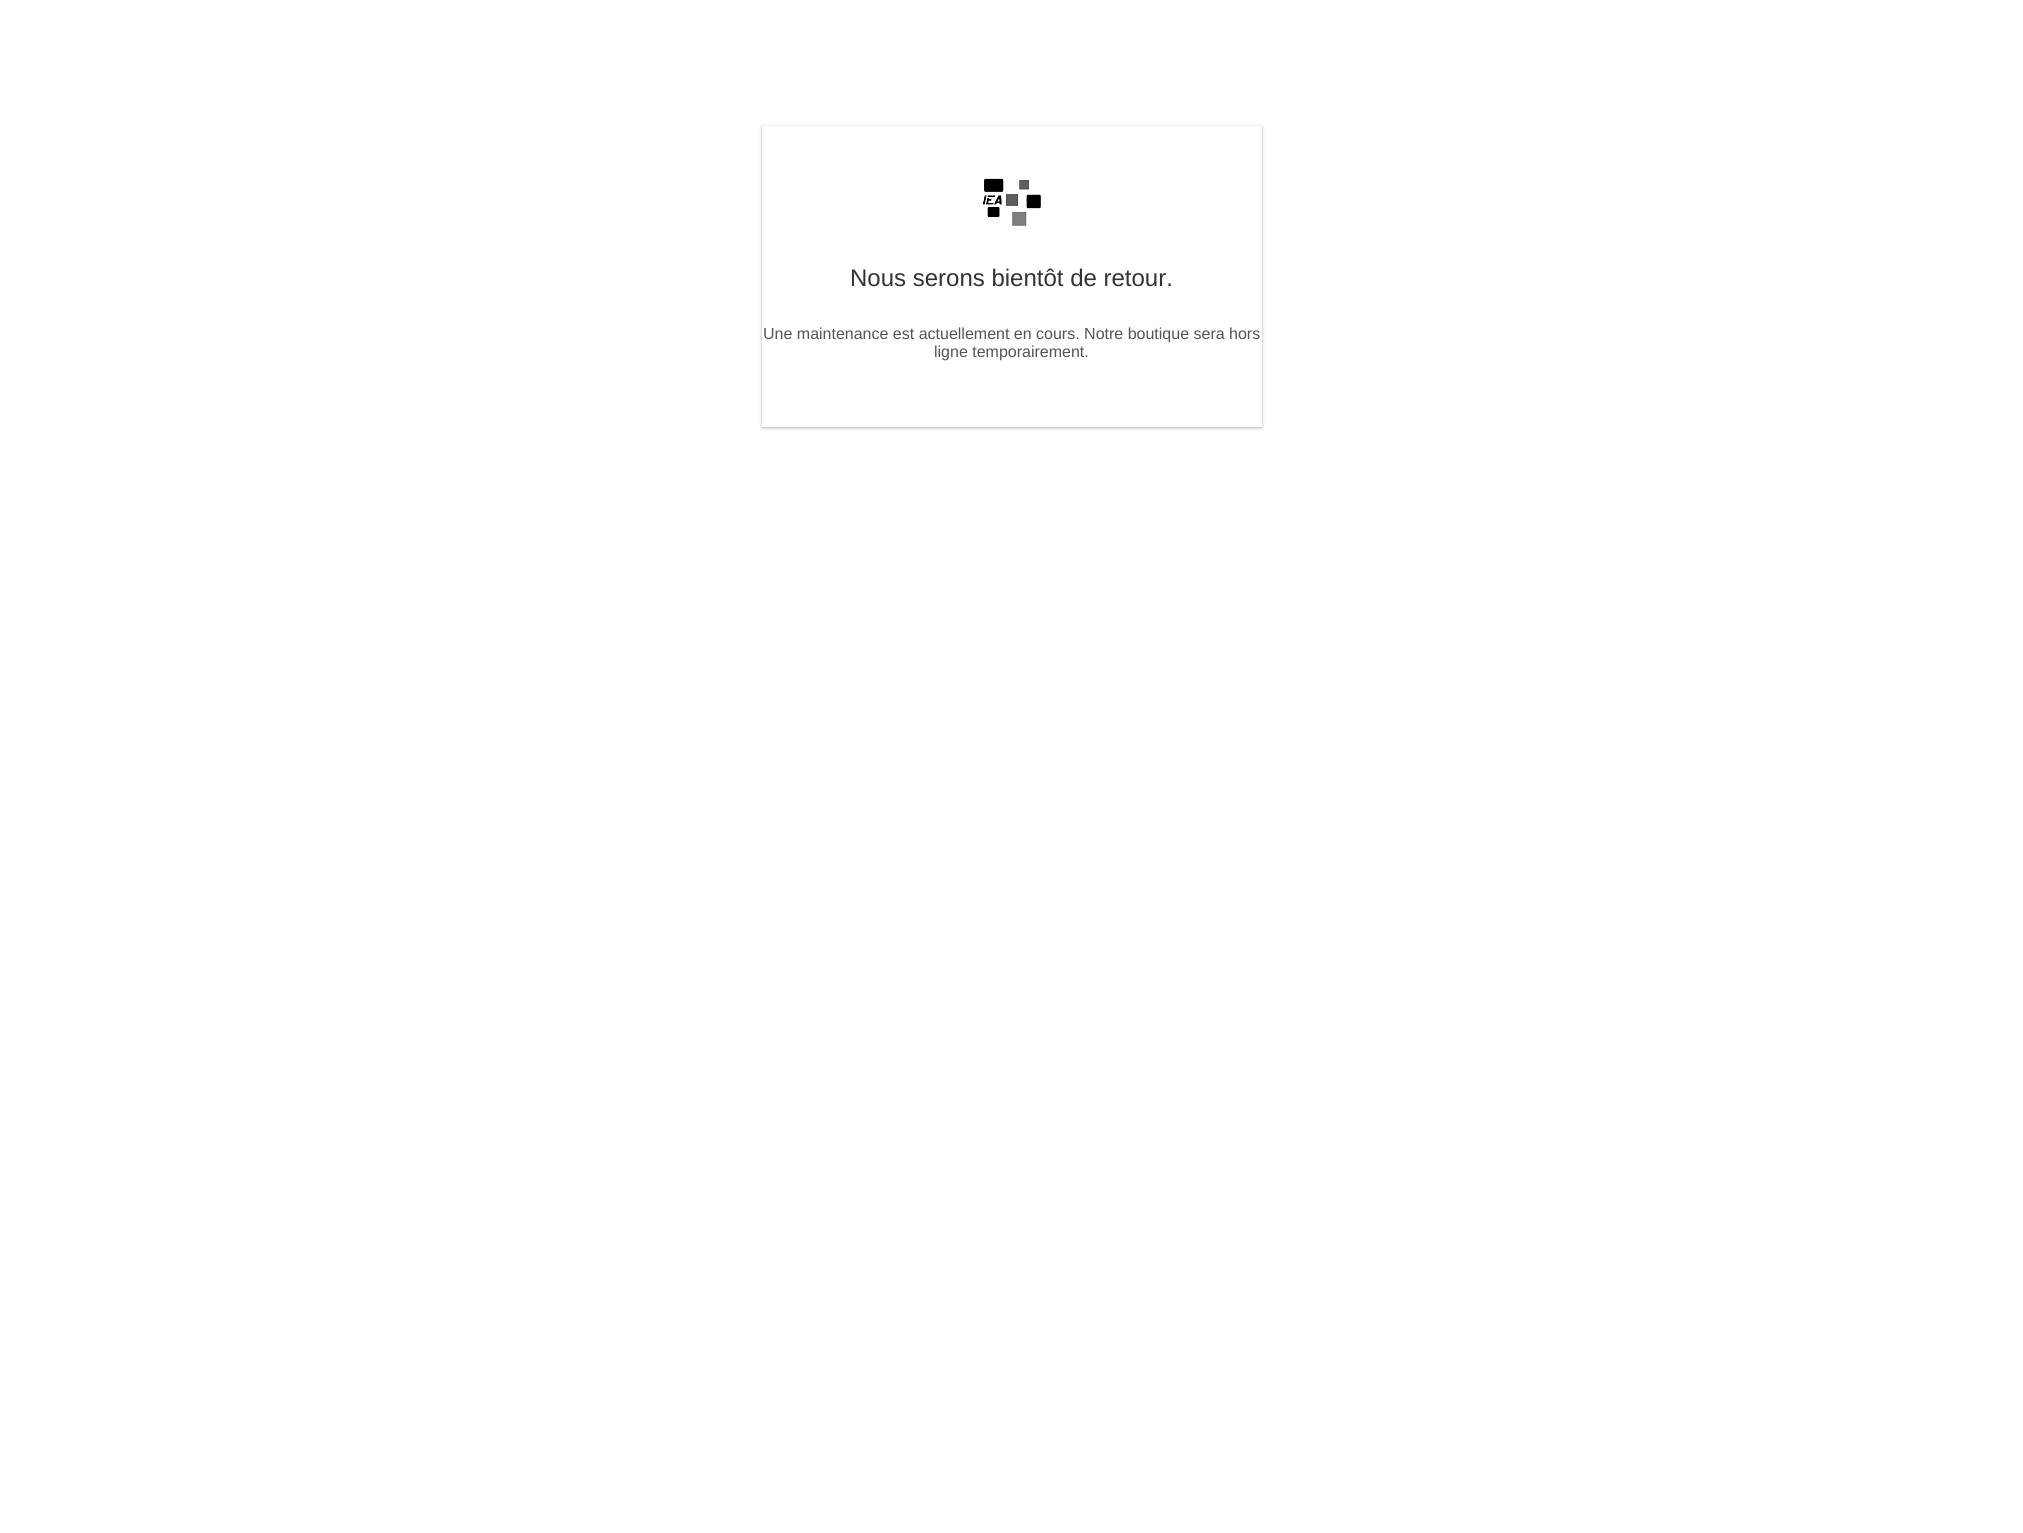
import math
import cairocffi as cairo

surface = cairo.ImageSurface(cairo.FORMAT_RGB24, 2023, 1533)
ctx = cairo.Context(surface)
options = cairo.FontOptions()
options.set_hint_metrics(cairo.HINT_METRICS_OFF)
options.set_hint_style(cairo.HINT_STYLE_NONE)
ctx.set_font_options(options)
ctx.set_miter_limit(4)


def rgb(r, g, b):
    ctx.set_source_rgb(r / 255, g / 255, b / 255)


def face(family, size, italic, bold):
    ctx.select_font_face(family, cairo.FONT_SLANT_ITALIC if italic else cairo.FONT_SLANT_NORMAL, cairo.FONT_WEIGHT_BOLD if bold else cairo.FONT_WEIGHT_NORMAL)
    ctx.set_font_size(size)


def label(x, y, s):
    ctx.move_to(x, y)
    ctx.show_text(s)


def rrect(x, y, w, h, r):
    ctx.new_sub_path()
    for i, (u, v) in enumerate([(x + w - r, y + h - r), (x + r, y + h - r), (x + r, y + r), (x + w - r, y + r)]):
        ctx.arc(u, v, r, i * math.pi / 2, (i + 1) * math.pi / 2)
    ctx.close_path()


def soft_shadow(x, y, w, h, r, blur, alpha):
    ctx.push_group_with_content(cairo.CONTENT_ALPHA)
    ctx.set_operator(cairo.OPERATOR_SOURCE)
    for i in range(15, -16, -2):
        e = blur * i / 6
        if min(w, h) + 2 * e > 0:
            ctx.set_source_rgba(0, 0, 0, alpha * math.erfc((i - 1) / 8.5) / 2)
            rrect(x - e, y - e, w + 2 * e, h + 2 * e, max(0, min(r + e + blur * .6, min(w, h) / 2 + e)))
            ctx.fill()
    ctx.mask(ctx.pop_group())


def image(path, x, y, w, h):
    ctx.save()
    ctx.set_source_surface(cairo.ImageSurface.create_from_png(path), x, y)
    ctx.rectangle(x, y, w, h)
    ctx.fill()
    ctx.restore()


rgb(255, 255, 255)
ctx.paint()
ctx.save()
ctx.set_fill_rule(cairo.FILL_RULE_EVEN_ODD)
ctx.new_path()
ctx.move_to(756, 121)
ctx.line_to(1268, 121)
ctx.line_to(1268, 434)
ctx.line_to(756, 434)
ctx.close_path()
ctx.move_to(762, 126)
ctx.line_to(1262, 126)
ctx.line_to(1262, 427)
ctx.line_to(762, 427)
ctx.close_path()
ctx.clip()
rgb(0, 0, 0)
soft_shadow(762, 127, 500, 301, 0, 1.5, 0.3)
ctx.restore()
image('image0.png', 983, 178, 58, 48)
face('Liberation Sans', 24, 0, 0)
rgb(51, 51, 51)
label(850, 286, 'Nous serons bientôt de retour.')
face('Liberation Sans', 16, 0, 0)
rgb(85, 84, 84)
label(763, 339, 'Une maintenance est actuellement en cours. Notre boutique sera hors')
label(934, 357, 'ligne temporairement.')
surface.write_to_png('render.png')
